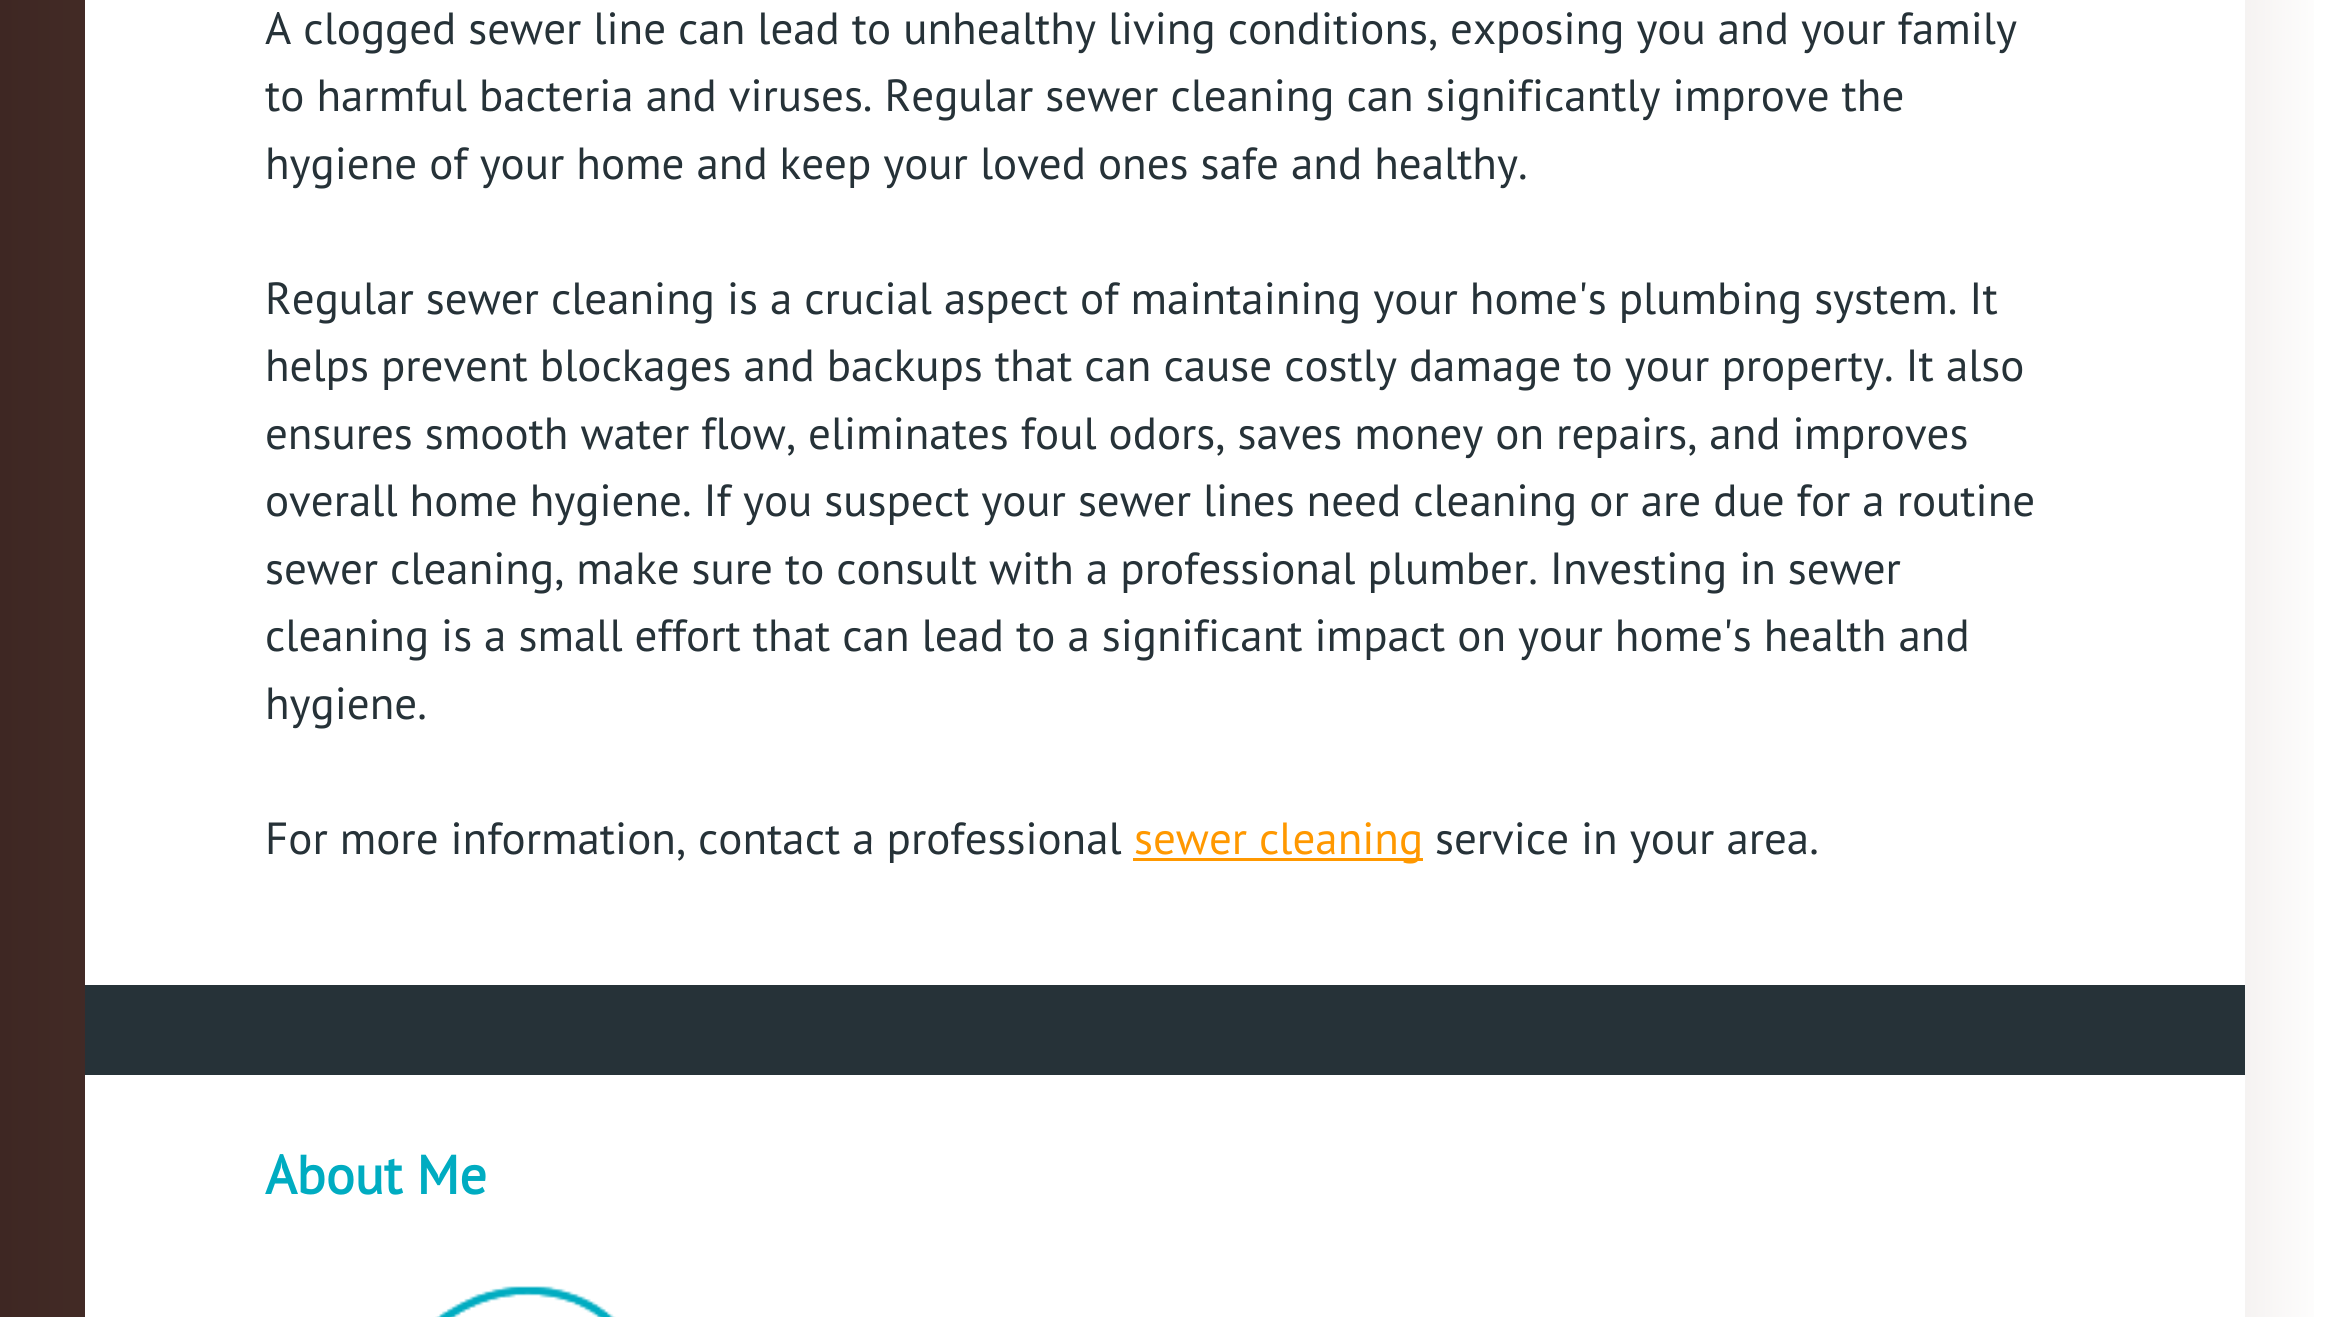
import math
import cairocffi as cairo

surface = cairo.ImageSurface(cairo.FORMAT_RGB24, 2328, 1317)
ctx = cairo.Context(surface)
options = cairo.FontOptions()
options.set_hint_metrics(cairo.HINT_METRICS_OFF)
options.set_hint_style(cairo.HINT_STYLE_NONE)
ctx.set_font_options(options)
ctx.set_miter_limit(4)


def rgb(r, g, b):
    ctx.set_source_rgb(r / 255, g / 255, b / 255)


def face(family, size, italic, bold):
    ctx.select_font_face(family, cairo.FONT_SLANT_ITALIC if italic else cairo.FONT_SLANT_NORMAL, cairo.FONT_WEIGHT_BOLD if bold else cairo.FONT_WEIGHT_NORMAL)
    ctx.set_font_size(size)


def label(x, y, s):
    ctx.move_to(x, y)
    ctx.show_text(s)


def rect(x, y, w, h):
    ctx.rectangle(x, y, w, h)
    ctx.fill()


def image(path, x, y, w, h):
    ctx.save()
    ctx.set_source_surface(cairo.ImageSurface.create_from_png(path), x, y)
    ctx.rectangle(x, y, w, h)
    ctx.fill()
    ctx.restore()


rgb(255, 255, 255)
ctx.paint()
gradient = cairo.LinearGradient(0, 126, 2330, 126)
gradient.add_color_stop_rgba(0, 0.243, 0.153, 0.137, 1)
gradient.add_color_stop_rgba(0.5, 0.475, 0.333, 0.282, 1)
gradient.add_color_stop_rgba(1, 1, 1, 1, 1)
ctx.set_source(gradient)
rect(0, 0, 2314, 1317)
rgb(255, 255, 255)
rect(85, 0, 2160, 1317)
face('PT Sans', 45, 0, 0)
rgb(38, 50, 56)
label(265, 44, 'A clogged sewer line can lead to unhealthy living conditions, exposing you and your family')
label(265, 111, 'to harmful bacteria and viruses. Regular sewer cleaning can significantly improve the')
label(265, 179, 'hygiene of your home and keep your loved ones safe and healthy.')
label(265, 314, 'Regular sewer cleaning is a crucial aspect of maintaining your home\'s plumbing system. It')
label(265, 381, 'helps prevent blockages and backups that can cause costly damage to your property. It also')
label(265, 449, 'ensures smooth water flow, eliminates foul odors, saves money on repairs, and improves')
label(265, 516, 'overall home hygiene. If you suspect your sewer lines need cleaning or are due for a routine')
label(265, 584, 'sewer cleaning, make sure to consult with a professional plumber. Investing in sewer')
label(265, 651, 'cleaning is a small effort that can lead to a significant impact on your home\'s health and')
label(265, 719, 'hygiene.')
label(265, 854, 'For more information, contact a professional')
rgb(255, 152, 0)
rect(1133, 858, 290, 3)
label(1134, 854, 'sewer cleaning')
rgb(38, 50, 56)
label(1435, 854, 'service in your area.')
rect(85, 985, 2160, 90)
face('PT Sans', 54, 0, 1)
rgb(0, 172, 193)
label(265, 1194, 'About Me')
image('image0.png', 435, 1286, 181, 31)
surface.write_to_png('render.png')
